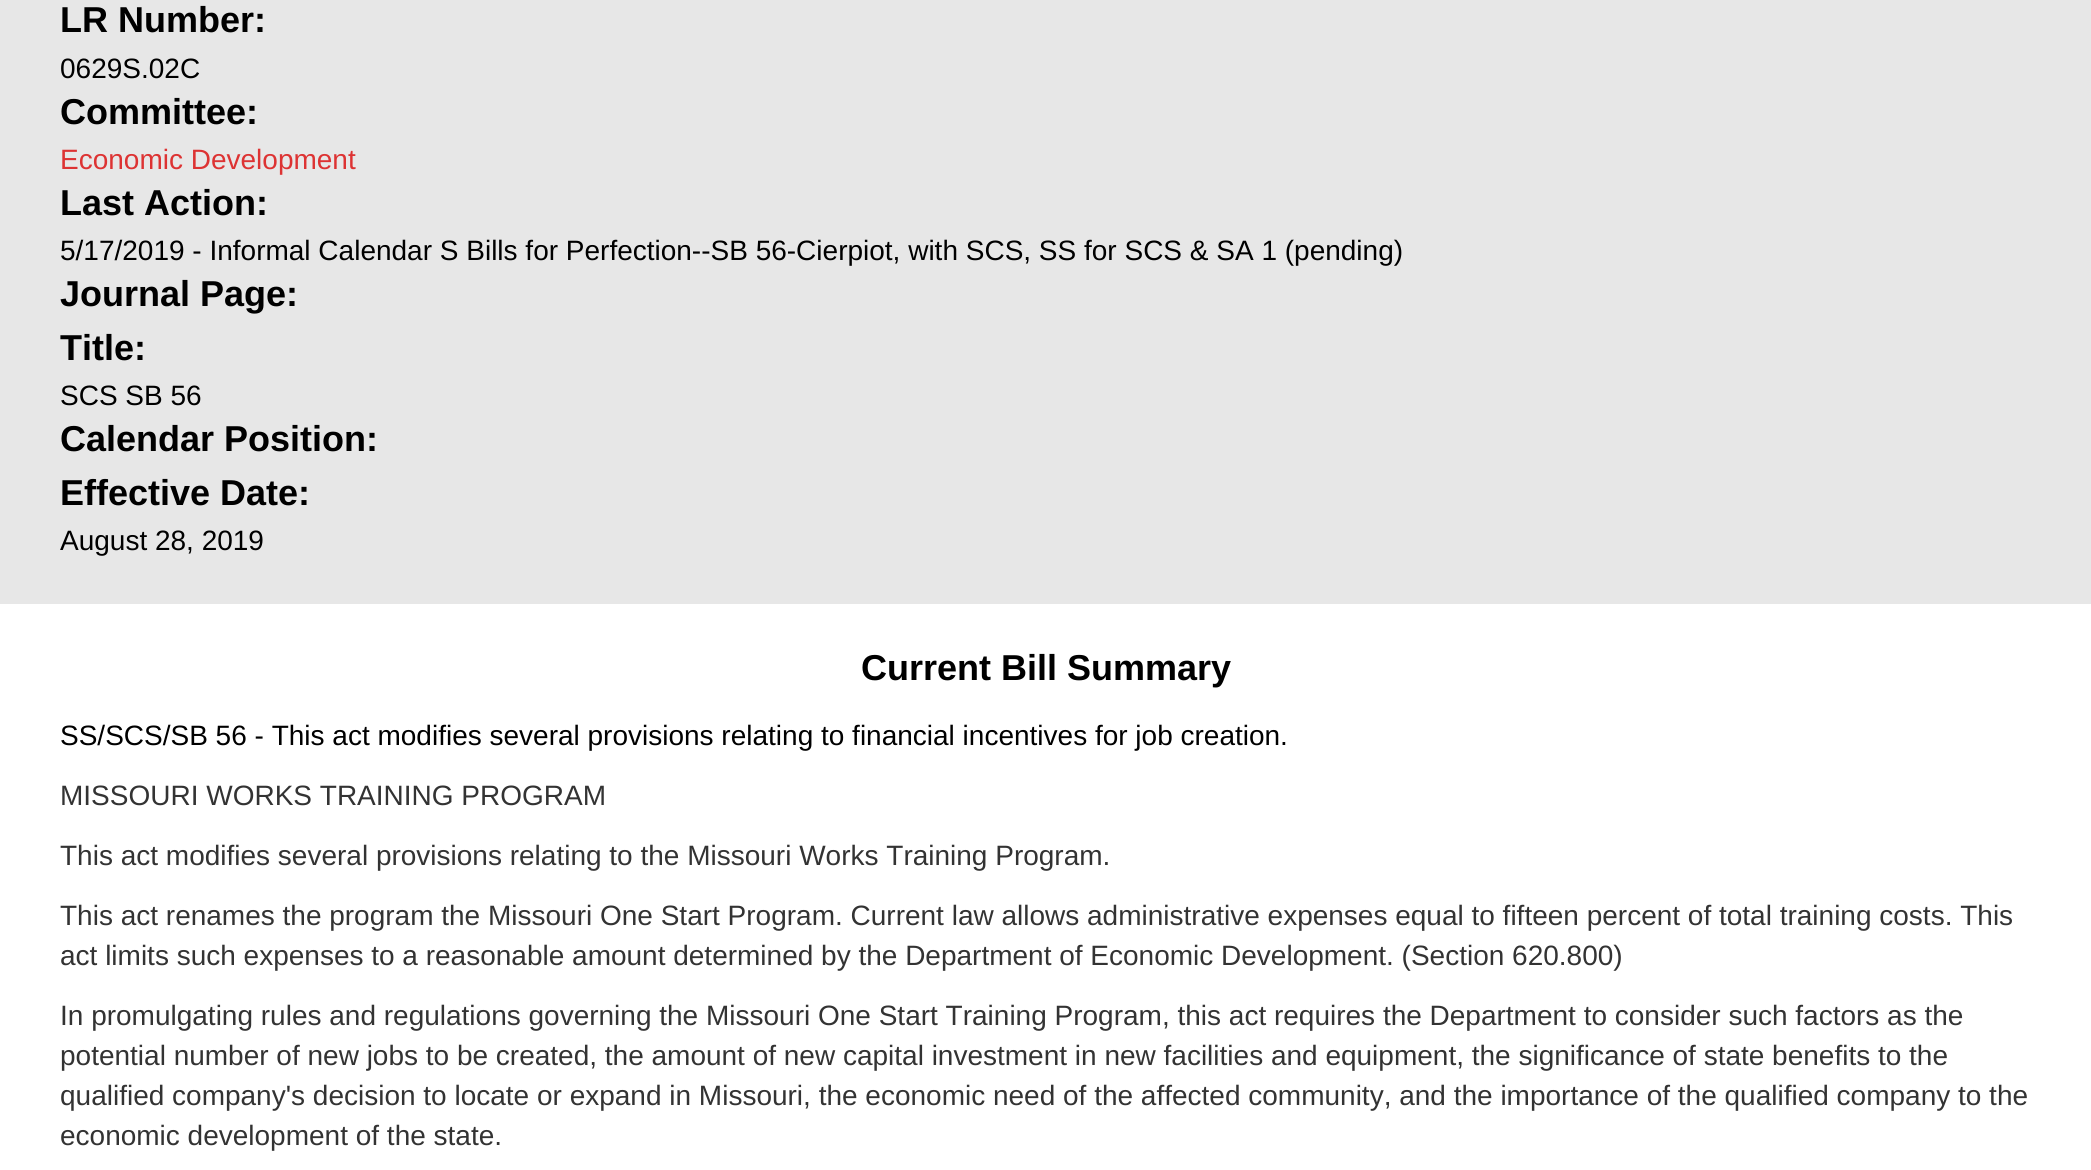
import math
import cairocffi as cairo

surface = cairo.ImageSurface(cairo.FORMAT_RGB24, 2091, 1170)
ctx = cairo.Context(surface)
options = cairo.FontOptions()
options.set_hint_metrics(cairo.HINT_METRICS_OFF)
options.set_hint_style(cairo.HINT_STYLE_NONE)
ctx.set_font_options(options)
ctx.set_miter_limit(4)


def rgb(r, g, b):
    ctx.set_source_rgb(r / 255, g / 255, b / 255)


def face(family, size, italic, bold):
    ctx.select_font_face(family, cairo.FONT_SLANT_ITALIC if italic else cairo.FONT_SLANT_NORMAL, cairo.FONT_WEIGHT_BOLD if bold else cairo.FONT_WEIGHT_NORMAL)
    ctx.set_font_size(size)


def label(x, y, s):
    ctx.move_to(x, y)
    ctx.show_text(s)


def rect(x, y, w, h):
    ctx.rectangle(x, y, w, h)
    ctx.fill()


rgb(255, 255, 255)
ctx.paint()
rgb(231, 231, 231)
rect(0, 0, 2091, 604)
face('Liberation Sans', 36, 0, 1)
rgb(0, 0, 0)
label(60, 32, 'LR Number:')
face('Liberation Sans', 28, 0, 0)
label(60, 78, '0629S.02C')
face('Liberation Sans', 36, 0, 1)
label(60, 124, 'Committee:')
face('Liberation Sans', 28, 0, 0)
rgb(221, 51, 51)
label(60, 169, 'Economic Development')
face('Liberation Sans', 36, 0, 1)
rgb(0, 0, 0)
label(60, 215, 'Last Action:')
face('Liberation Sans', 28, 0, 0)
label(60, 260, '5/17/2019 - Informal Calendar S Bills for Perfection--SB 56-Cierpiot, with SCS, SS for SCS & SA 1 (pending)')
face('Liberation Sans', 36, 0, 1)
label(60, 306, 'Journal Page:')
label(60, 360, 'Title:')
face('Liberation Sans', 28, 0, 0)
label(60, 405, 'SCS SB 56')
face('Liberation Sans', 36, 0, 1)
label(60, 451, 'Calendar Position:')
label(60, 505, 'Effective Date:')
face('Liberation Sans', 28, 0, 0)
label(60, 550, 'August 28, 2019')
face('Liberation Sans', 36, 0, 1)
label(861, 680, 'Current Bill Summary')
face('Liberation Sans', 28, 0, 0)
label(60, 745, 'SS/SCS/SB 56 - This act modifies several provisions relating to financial incentives for job creation.')
rgb(51, 51, 51)
label(60, 805, 'MISSOURI WORKS TRAINING PROGRAM')
label(60, 865, 'This act modifies several provisions relating to the Missouri Works Training Program.')
label(60, 925, 'This act renames the program the Missouri One Start Program. Current law allows administrative expenses equal to fifteen percent of total training costs. This')
label(60, 965, 'act limits such expenses to a reasonable amount determined by the Department of Economic Development. (Section 620.800)')
label(60, 1025, 'In promulgating rules and regulations governing the Missouri One Start Training Program, this act requires the Department to consider such factors as the')
label(60, 1065, 'potential number of new jobs to be created, the amount of new capital investment in new facilities and equipment, the significance of state benefits to the')
label(60, 1105, 'qualified company\'s decision to locate or expand in Missouri, the economic need of the affected community, and the importance of the qualified company to the')
label(60, 1145, 'economic development of the state.')
surface.write_to_png('render.png')
